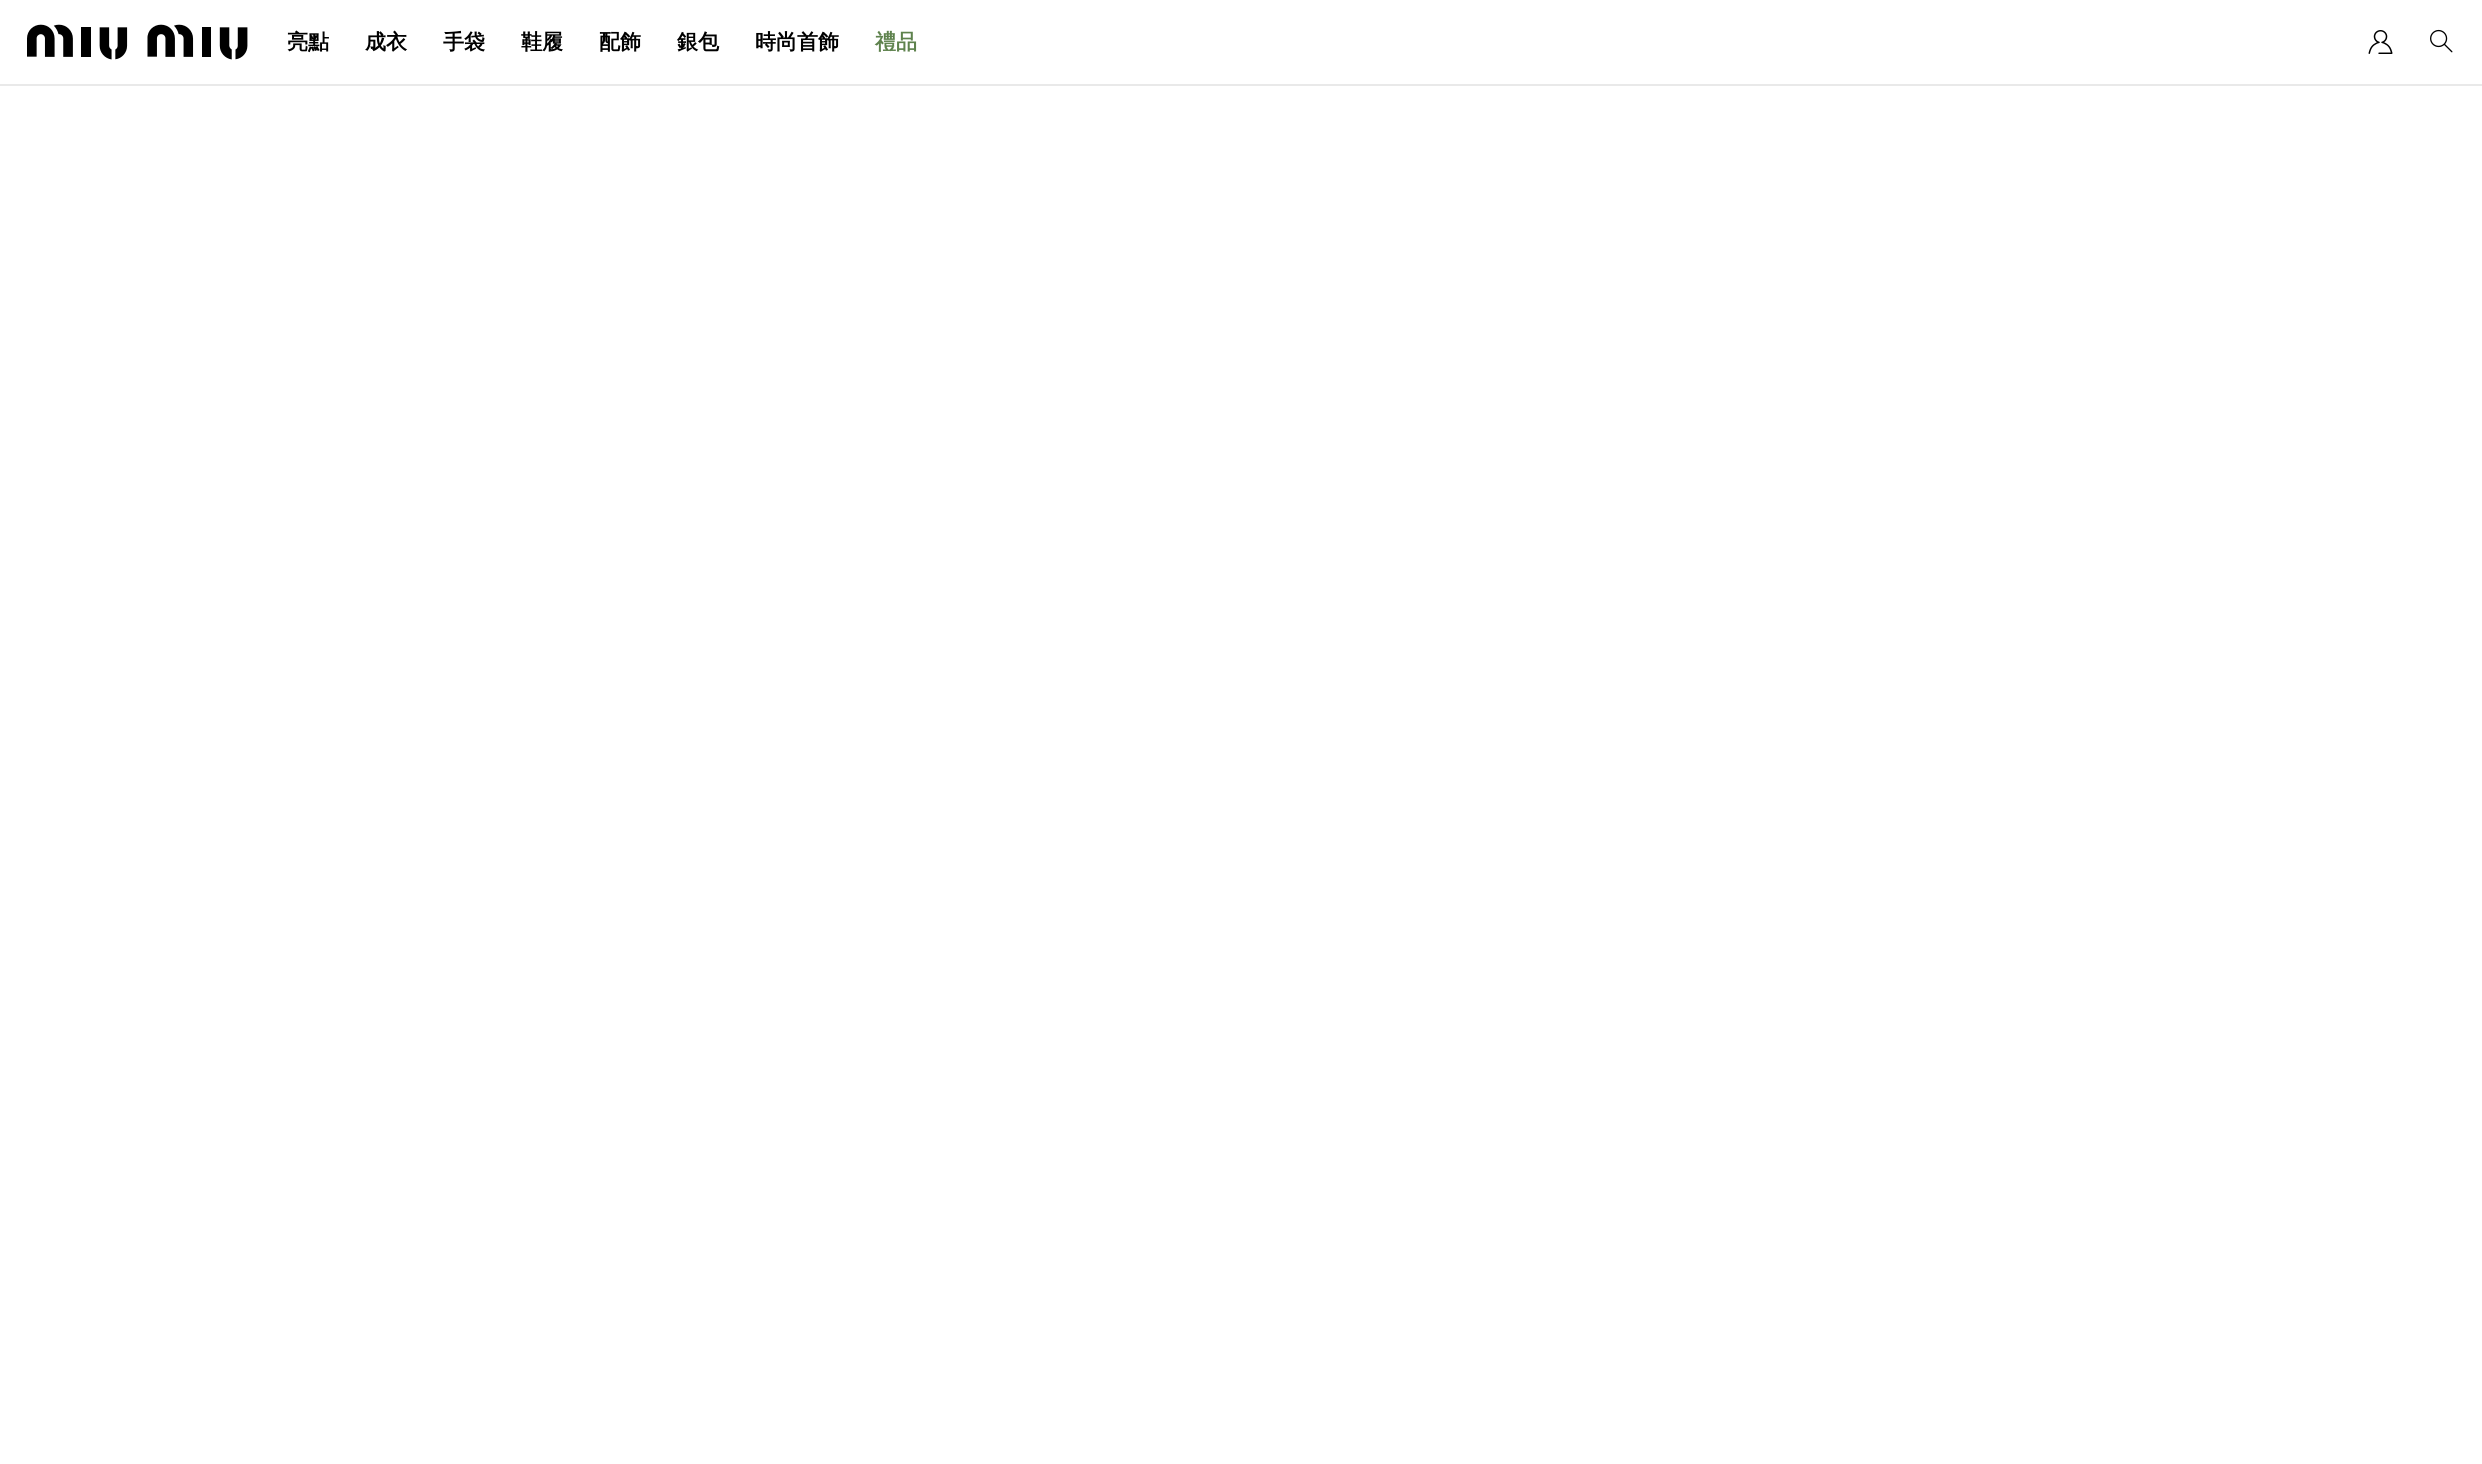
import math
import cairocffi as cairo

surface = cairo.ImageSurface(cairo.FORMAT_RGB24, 2482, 1464)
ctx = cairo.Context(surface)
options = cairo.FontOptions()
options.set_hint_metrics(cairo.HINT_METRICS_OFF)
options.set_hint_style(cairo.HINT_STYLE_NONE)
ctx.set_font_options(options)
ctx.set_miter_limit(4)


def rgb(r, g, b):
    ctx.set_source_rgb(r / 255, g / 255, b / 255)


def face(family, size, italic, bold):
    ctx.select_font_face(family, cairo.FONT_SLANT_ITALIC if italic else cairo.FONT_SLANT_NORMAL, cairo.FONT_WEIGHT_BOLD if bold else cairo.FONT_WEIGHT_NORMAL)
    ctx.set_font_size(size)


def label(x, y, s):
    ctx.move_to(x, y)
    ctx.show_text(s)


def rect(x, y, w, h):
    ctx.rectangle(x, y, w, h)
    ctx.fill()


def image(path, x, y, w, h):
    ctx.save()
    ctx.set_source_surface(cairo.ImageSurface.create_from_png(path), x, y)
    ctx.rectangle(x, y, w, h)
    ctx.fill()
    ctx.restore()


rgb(255, 255, 255)
ctx.paint()
rgb(233, 233, 233)
rect(0, 84, 2482, 2)
image('image0.png', 27, 24, 221, 36)
face('WenQuanYi Zen Hei', 21, 0, 1)
rgb(0, 0, 0)
label(287, 49, '亮點')
label(365, 49, '成衣')
label(443, 49, '手袋')
label(521, 49, '鞋履')
label(599, 49, '配飾')
label(677, 49, '銀包')
label(755, 49, '時尚首飾')
rgb(94, 130, 77)
label(875, 49, '禮品')
image('image1.png', 2368, 30, 25, 24)
image('image2.png', 2430, 29, 23, 24)
surface.write_to_png('render.png')
